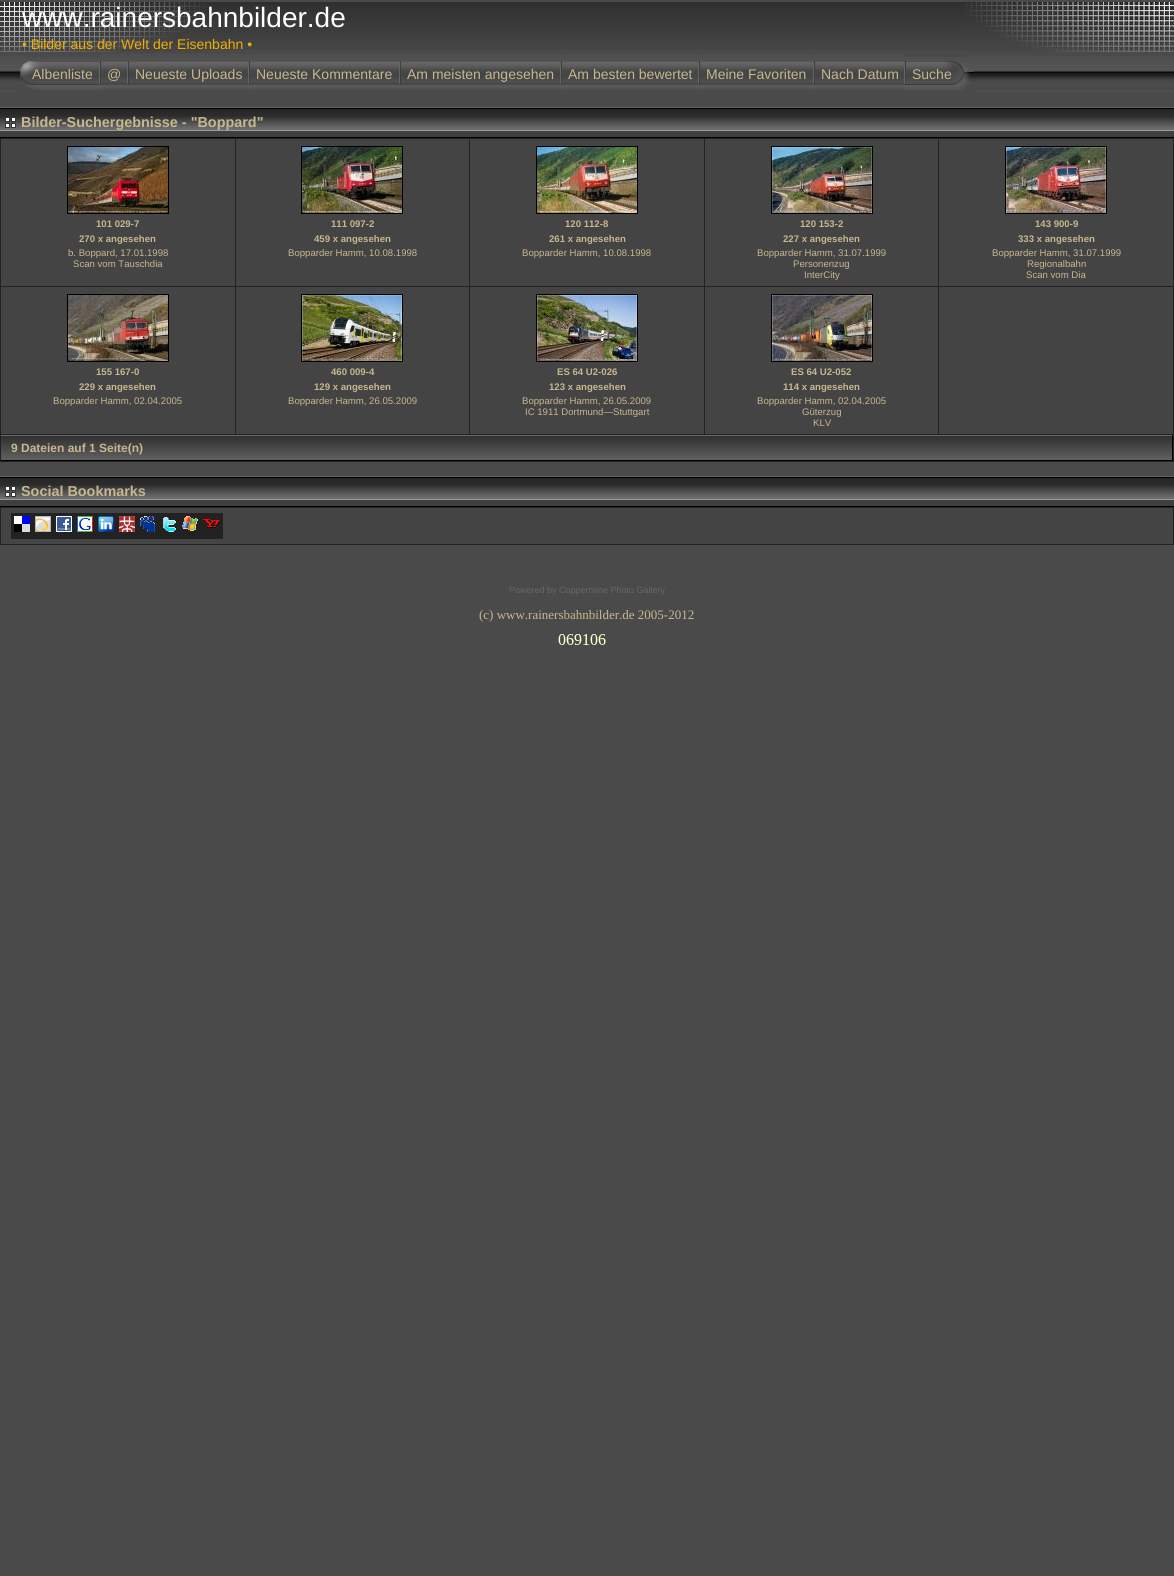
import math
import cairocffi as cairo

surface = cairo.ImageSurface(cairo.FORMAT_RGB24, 1174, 1576)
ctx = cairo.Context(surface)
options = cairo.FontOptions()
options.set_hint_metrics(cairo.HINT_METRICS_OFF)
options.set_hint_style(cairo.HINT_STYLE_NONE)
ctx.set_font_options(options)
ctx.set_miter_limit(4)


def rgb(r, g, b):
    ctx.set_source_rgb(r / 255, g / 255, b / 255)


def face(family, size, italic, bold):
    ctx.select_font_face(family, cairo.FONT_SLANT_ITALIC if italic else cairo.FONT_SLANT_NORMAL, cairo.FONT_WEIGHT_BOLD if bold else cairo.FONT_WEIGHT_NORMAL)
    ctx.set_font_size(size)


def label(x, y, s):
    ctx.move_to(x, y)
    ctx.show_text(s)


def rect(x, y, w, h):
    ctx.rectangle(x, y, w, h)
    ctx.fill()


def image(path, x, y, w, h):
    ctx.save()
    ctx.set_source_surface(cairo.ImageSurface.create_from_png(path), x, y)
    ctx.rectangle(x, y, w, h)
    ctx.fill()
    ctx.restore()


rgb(74, 74, 74)
ctx.paint()
image('image0.png', 208, 2, 757, 48)
image('image1.png', 0, 2, 208, 50)
image('image2.png', 965, 2, 209, 50)
face('Liberation Sans', 28, 0, 0)
rgb(255, 255, 255)
label(22, 27, 'www.rainersbahnbilder.de')
face('Liberation Sans', 14, 0, 0)
rgb(240, 175, 0)
label(22, 49, '• Bilder aus der Welt der Eisenbahn •')
image('image3.png', 0, 56, 1174, 36)
rgb(74, 74, 74)
rect(20, 56, 79, 36)
image('image4.png', 20, 57, 79, 33)
rgb(198, 183, 142)
label(32, 79, 'Albenliste')
image('image5.png', 99, 61, 2, 29)
rgb(74, 74, 74)
rect(101, 91, 26, 1)
image('image6.png', 101, 54, 26, 36)
rgb(198, 183, 142)
label(107, 79, '@')
image('image5.png', 127, 61, 2, 29)
rgb(74, 74, 74)
rect(129, 91, 119, 1)
image('image7.png', 129, 54, 119, 36)
rgb(198, 183, 142)
label(135, 79, 'Neueste Uploads')
image('image5.png', 248, 61, 2, 29)
rgb(74, 74, 74)
rect(250, 91, 149, 1)
image('image8.png', 250, 54, 149, 36)
rgb(198, 183, 142)
label(256, 79, 'Neueste Kommentare')
image('image5.png', 399, 61, 2, 29)
rgb(74, 74, 74)
rect(401, 91, 159, 1)
image('image9.png', 401, 54, 159, 36)
rgb(198, 183, 142)
label(407, 79, 'Am meisten angesehen')
image('image5.png', 560, 61, 2, 29)
rgb(74, 74, 74)
rect(562, 91, 136, 1)
image('image10.png', 562, 54, 136, 36)
rgb(198, 183, 142)
label(568, 79, 'Am besten bewertet')
image('image5.png', 698, 61, 2, 29)
rgb(74, 74, 74)
rect(700, 91, 113, 1)
image('image11.png', 700, 54, 113, 36)
rgb(198, 183, 142)
label(706, 79, 'Meine Favoriten')
image('image5.png', 813, 61, 2, 29)
rgb(74, 74, 74)
rect(815, 91, 89, 1)
image('image12.png', 815, 54, 89, 36)
rgb(198, 183, 142)
label(821, 79, 'Nach Datum')
image('image5.png', 904, 61, 2, 29)
rgb(74, 74, 74)
rect(906, 56, 68, 36)
image('image13.png', 906, 57, 68, 33)
rgb(198, 183, 142)
label(912, 79, 'Suche')
rgb(0, 0, 0)
rect(0, 137, 1174, 1)
image('image14.png', 0, 107, 21, 30)
image('image15.png', 5, 118, 11, 10)
image('image16.png', 21, 107, 1095, 30)
face('Liberation Sans', 14.4, 0, 1)
rgb(198, 183, 142)
label(21, 127, 'Bilder-Suchergebnisse - "Boppard"')
image('image17.png', 1116, 107, 58, 30)
rgb(34, 34, 34)
rect(0, 138, 1174, 324)
rgb(69, 68, 68)
rect(1, 139, 234, 147)
ctx.rectangle(67.5, 146.5, 101, 67)
rgb(0, 0, 0)
ctx.set_line_width(1)
ctx.stroke()
image('image18.png', 68, 147, 100, 66)
face('Liberation Sans', 9.6, 0, 1)
rgb(198, 183, 142)
label(96, 227, '101 029-7')
label(79, 242, '270 x angesehen')
face('Liberation Sans', 9.6, 0, 0)
label(68, 256, 'b. Boppard, 17.01.1998')
label(73, 267, 'Scan vom Tauschdia')
rgb(69, 68, 68)
rect(236, 139, 233, 147)
ctx.rectangle(301.5, 146.5, 101, 67)
rgb(0, 0, 0)
ctx.stroke()
image('image19.png', 302, 147, 100, 66)
face('Liberation Sans', 9.6, 0, 1)
rgb(198, 183, 142)
label(331, 227, '111 097-2')
label(314, 242, '459 x angesehen')
face('Liberation Sans', 9.6, 0, 0)
label(288, 256, 'Bopparder Hamm, 10.08.1998')
rgb(69, 68, 68)
rect(470, 139, 234, 147)
ctx.rectangle(536.5, 146.5, 101, 67)
rgb(0, 0, 0)
ctx.stroke()
image('image20.png', 537, 147, 100, 66)
face('Liberation Sans', 9.6, 0, 1)
rgb(198, 183, 142)
label(565, 227, '120 112-8')
label(549, 242, '261 x angesehen')
face('Liberation Sans', 9.6, 0, 0)
label(522, 256, 'Bopparder Hamm, 10.08.1998')
rgb(69, 68, 68)
rect(705, 139, 233, 147)
ctx.rectangle(771.5, 146.5, 101, 67)
rgb(0, 0, 0)
ctx.stroke()
image('image21.png', 772, 147, 100, 66)
face('Liberation Sans', 9.6, 0, 1)
rgb(198, 183, 142)
label(800, 227, '120 153-2')
label(783, 242, '227 x angesehen')
face('Liberation Sans', 9.6, 0, 0)
label(757, 256, 'Bopparder Hamm, 31.07.1999')
label(793, 267, 'Personenzug')
label(804, 278, 'InterCity')
rgb(69, 68, 68)
rect(939, 139, 234, 147)
ctx.rectangle(1005.5, 146.5, 101, 67)
rgb(0, 0, 0)
ctx.stroke()
image('image22.png', 1006, 147, 100, 66)
face('Liberation Sans', 9.6, 0, 1)
rgb(198, 183, 142)
label(1035, 227, '143 900-9')
label(1018, 242, '333 x angesehen')
face('Liberation Sans', 9.6, 0, 0)
label(992, 256, 'Bopparder Hamm, 31.07.1999')
label(1027, 267, 'Regionalbahn')
label(1026, 278, 'Scan vom Dia')
rgb(69, 68, 68)
rect(1, 287, 234, 147)
ctx.rectangle(67.5, 294.5, 101, 67)
rgb(0, 0, 0)
ctx.stroke()
image('image23.png', 68, 295, 100, 66)
face('Liberation Sans', 9.6, 0, 1)
rgb(198, 183, 142)
label(96, 375, '155 167-0')
label(79, 390, '229 x angesehen')
face('Liberation Sans', 9.6, 0, 0)
label(53, 404, 'Bopparder Hamm, 02.04.2005')
rgb(69, 68, 68)
rect(236, 287, 233, 147)
ctx.rectangle(301.5, 294.5, 101, 67)
rgb(0, 0, 0)
ctx.stroke()
image('image24.png', 302, 295, 100, 66)
face('Liberation Sans', 9.6, 0, 1)
rgb(198, 183, 142)
label(331, 375, '460 009-4')
label(314, 390, '129 x angesehen')
face('Liberation Sans', 9.6, 0, 0)
label(288, 404, 'Bopparder Hamm, 26.05.2009')
rgb(69, 68, 68)
rect(470, 287, 234, 147)
ctx.rectangle(536.5, 294.5, 101, 67)
rgb(0, 0, 0)
ctx.stroke()
image('image25.png', 537, 295, 100, 66)
face('Liberation Sans', 9.6, 0, 1)
rgb(198, 183, 142)
label(557, 375, 'ES 64 U2-026')
label(549, 390, '123 x angesehen')
face('Liberation Sans', 9.6, 0, 0)
label(522, 404, 'Bopparder Hamm, 26.05.2009')
label(525, 415, 'IC 1911 Dortmund—Stuttgart')
rgb(69, 68, 68)
rect(705, 287, 233, 147)
ctx.rectangle(771.5, 294.5, 101, 67)
rgb(0, 0, 0)
ctx.stroke()
image('image26.png', 772, 295, 100, 66)
face('Liberation Sans', 9.6, 0, 1)
rgb(198, 183, 142)
label(791, 375, 'ES 64 U2-052')
label(783, 390, '114 x angesehen')
face('Liberation Sans', 9.6, 0, 0)
label(757, 404, 'Bopparder Hamm, 02.04.2005')
label(802, 415, 'Güterzug')
label(813, 426, 'KLV')
rgb(69, 68, 68)
rect(939, 287, 234, 147)
image('image27.png', 1, 435, 1171, 25)
rgb(0, 0, 0)
rect(1172, 435, 1, 26)
rect(1, 460, 1172, 1)
face('Liberation Sans', 12, 0, 1)
rgb(198, 183, 142)
label(11, 452, '9 Dateien auf 1 Seite(n)')
rgb(0, 0, 0)
rect(0, 506, 1174, 1)
image('image14.png', 0, 476, 21, 30)
image('image15.png', 5, 487, 11, 10)
image('image16.png', 21, 476, 1095, 30)
face('Liberation Sans', 14.4, 0, 1)
rgb(198, 183, 142)
label(21, 496, 'Social Bookmarks')
image('image17.png', 1116, 476, 58, 30)
rgb(34, 34, 34)
rect(0, 507, 1174, 38)
rgb(69, 68, 68)
rect(1, 508, 1172, 36)
rgb(34, 34, 34)
rect(11, 513, 212, 26)
image('image28.png', 14, 516, 16, 16)
image('image29.png', 35, 516, 16, 16)
image('image30.png', 56, 516, 16, 16)
image('image31.png', 77, 516, 16, 16)
image('image32.png', 98, 516, 16, 16)
image('image33.png', 119, 516, 16, 16)
image('image34.png', 140, 516, 15, 16)
image('image35.png', 163, 517, 13, 15)
image('image36.png', 182, 516, 16, 15)
image('image37.png', 203, 519, 16, 9)
face('Liberation Sans', 9, 0, 0)
rgb(102, 102, 102)
label(509, 593, 'Powered by Coppermine Photo Gallery')
face('Liberation Serif', 13, 0, 0)
rgb(198, 183, 142)
label(479, 619, '(c) www.rainersbahnbilder.de 2005-2012')
image('image38.png', 558, 634, 48, 11)
surface.write_to_png('render.png')
